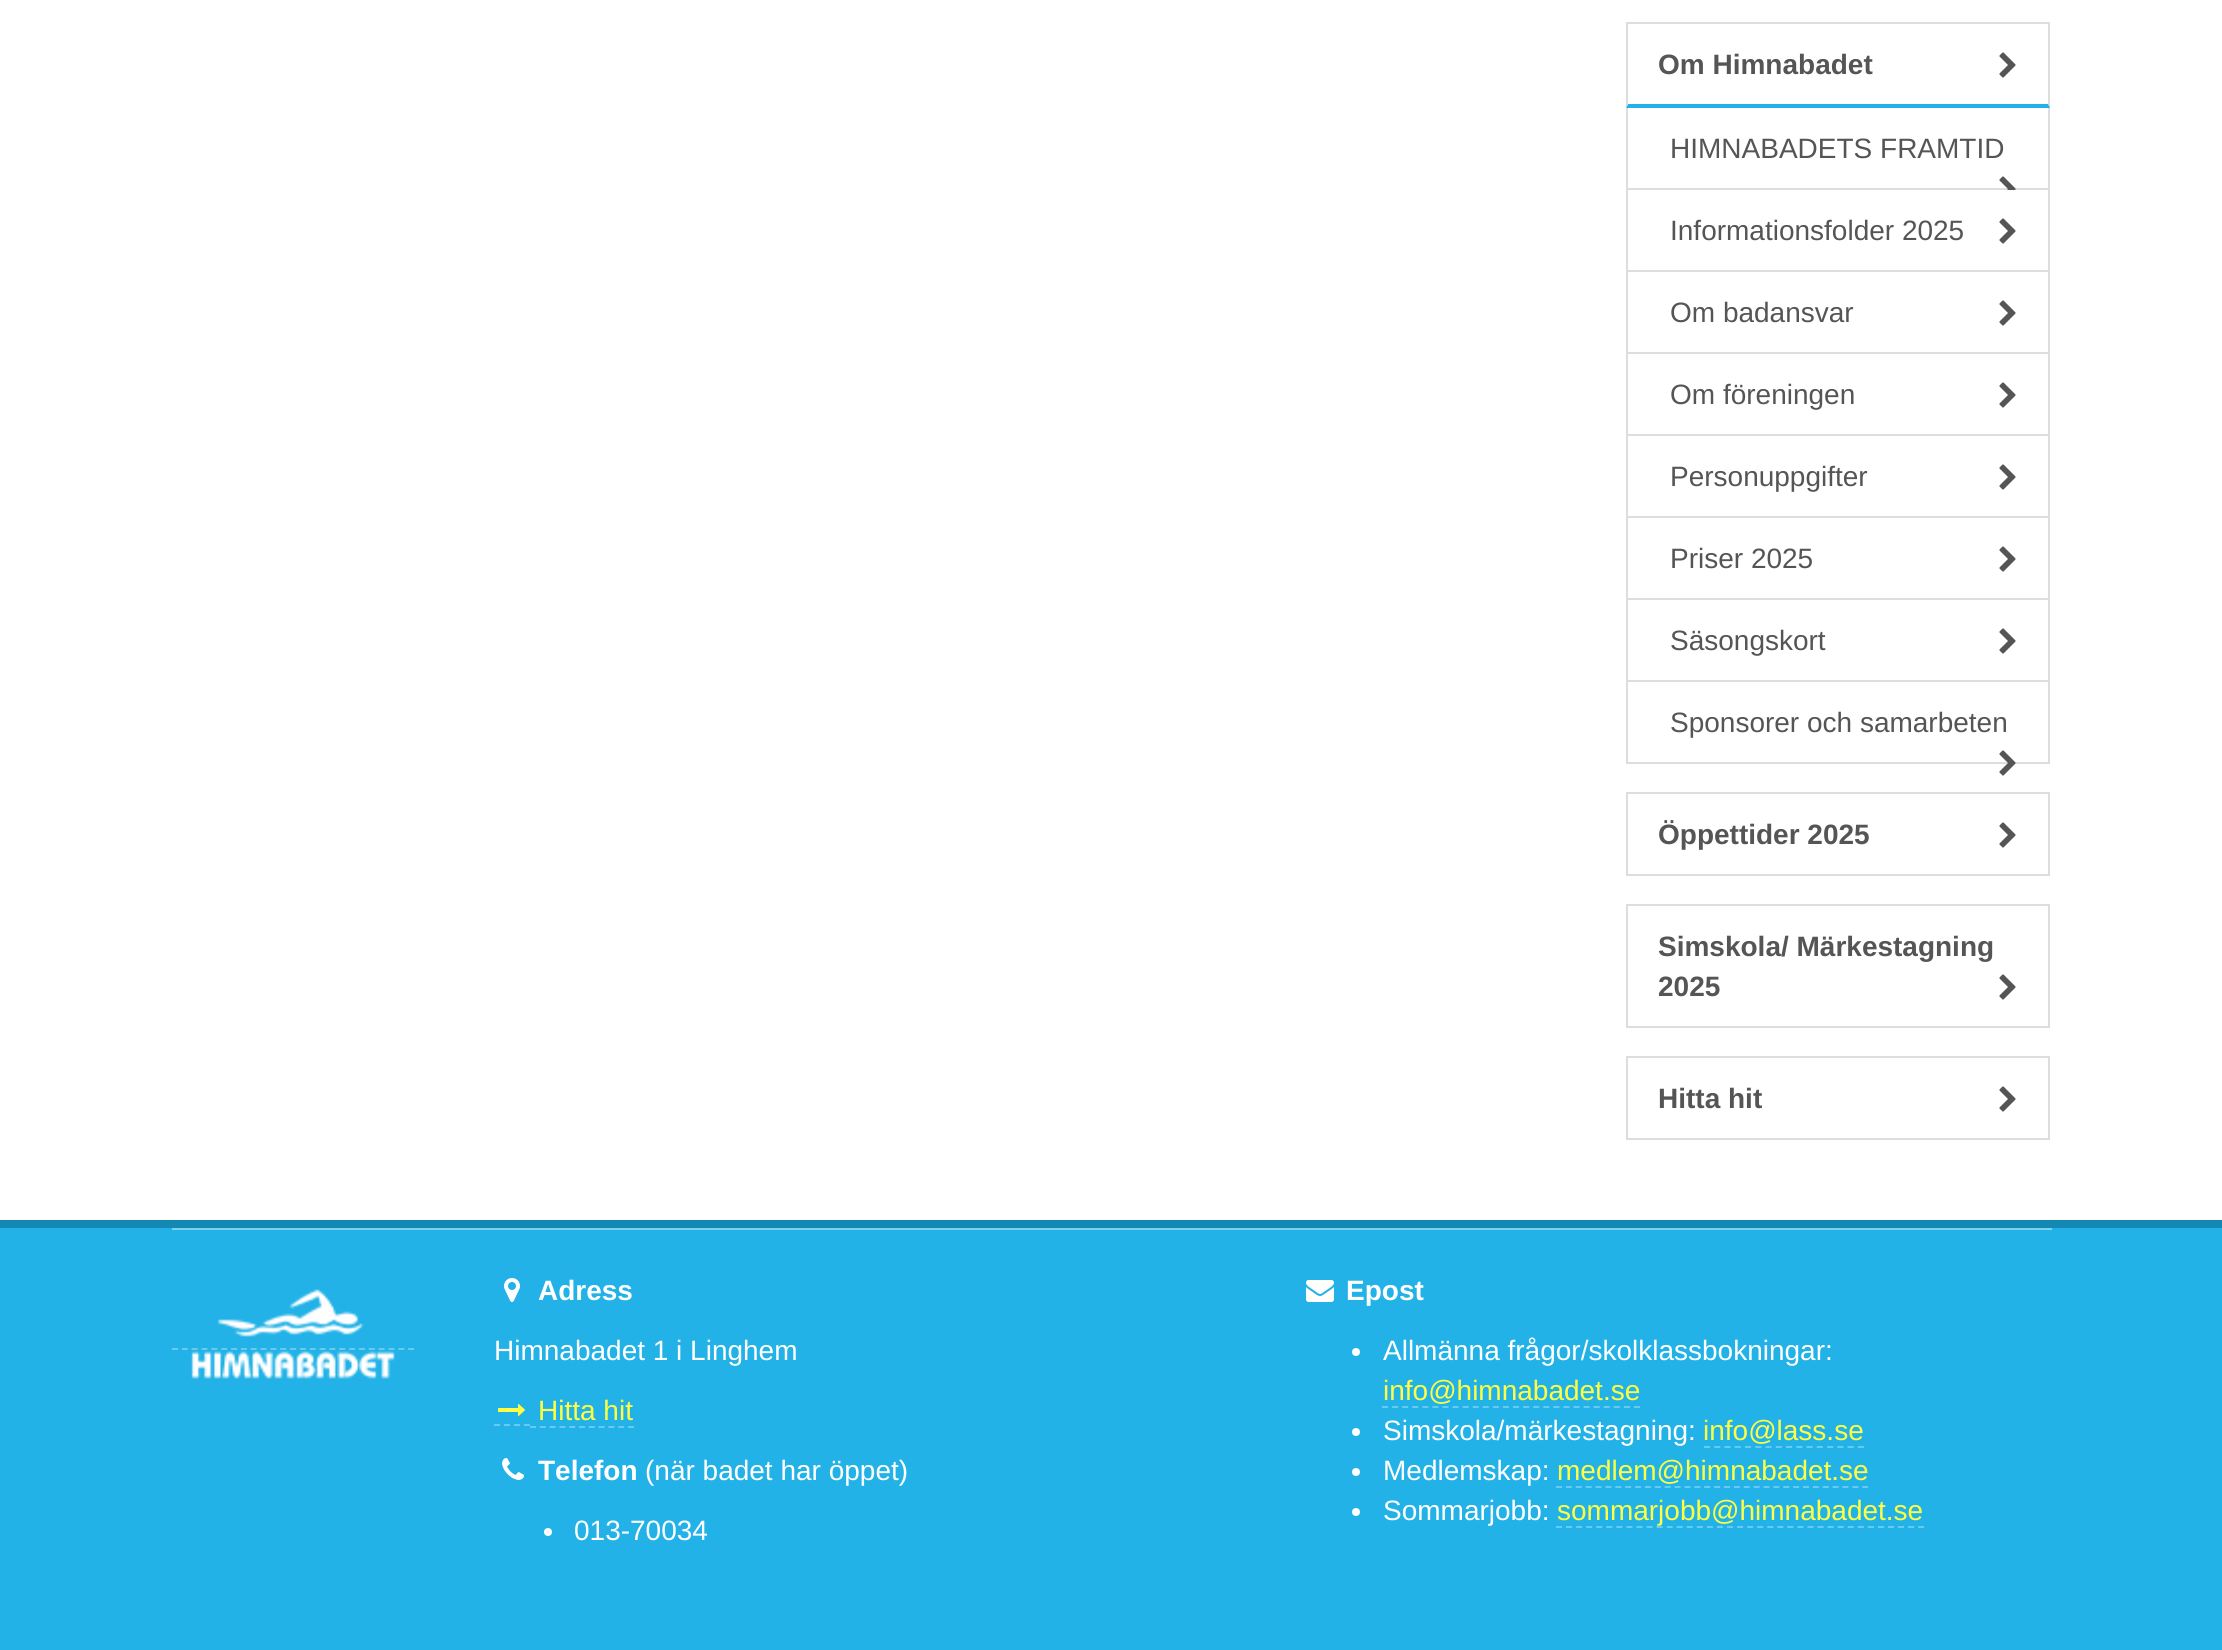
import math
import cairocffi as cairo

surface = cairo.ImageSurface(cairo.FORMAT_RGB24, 2222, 1650)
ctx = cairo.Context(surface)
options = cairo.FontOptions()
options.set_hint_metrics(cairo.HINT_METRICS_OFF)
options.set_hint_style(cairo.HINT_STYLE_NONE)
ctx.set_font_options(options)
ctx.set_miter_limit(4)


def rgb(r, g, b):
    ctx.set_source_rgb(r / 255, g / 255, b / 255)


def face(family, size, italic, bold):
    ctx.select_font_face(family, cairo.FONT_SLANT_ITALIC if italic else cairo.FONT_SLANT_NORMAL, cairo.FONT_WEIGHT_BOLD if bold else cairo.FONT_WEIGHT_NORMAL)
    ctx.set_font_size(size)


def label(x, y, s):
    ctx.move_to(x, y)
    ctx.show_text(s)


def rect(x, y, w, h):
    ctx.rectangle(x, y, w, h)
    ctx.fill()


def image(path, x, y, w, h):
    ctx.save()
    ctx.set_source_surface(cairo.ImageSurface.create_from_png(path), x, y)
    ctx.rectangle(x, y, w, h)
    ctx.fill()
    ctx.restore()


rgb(34, 178, 231)
ctx.paint()
rgb(255, 255, 255)
rect(0, 0, 2222, 1220)
rgb(221, 221, 221)
rect(1626, 22, 424, 2)
ctx.new_path()
ctx.move_to(2050, 22)
ctx.line_to(2050, 108)
ctx.line_to(2048, 104)
ctx.line_to(2048, 24)
ctx.close_path()
ctx.fill()
rgb(34, 178, 231)
ctx.new_path()
ctx.move_to(2050, 108)
ctx.line_to(1626, 108)
ctx.line_to(1628, 104)
ctx.line_to(2048, 104)
ctx.close_path()
ctx.fill()
rgb(221, 221, 221)
ctx.new_path()
ctx.move_to(1626, 108)
ctx.line_to(1626, 22)
ctx.line_to(1628, 24)
ctx.line_to(1628, 104)
ctx.close_path()
ctx.fill()
face('Liberation Sans', 28, 0, 1)
rgb(85, 85, 85)
label(1658, 74, 'Om Himnabadet')
image('image0.png', 1999, 52, 17, 26)
rgb(221, 221, 221)
rect(2048, 108, 2, 656)
rect(1626, 188, 424, 2)
rect(1626, 108, 2, 82)
face('Liberation Sans', 28, 0, 0)
rgb(85, 85, 85)
label(1670, 158, 'HIMNABADETS FRAMTID')
image('image1.png', 1999, 176, 17, 14)
rgb(221, 221, 221)
rect(1626, 270, 424, 2)
rect(1626, 190, 2, 82)
rgb(85, 85, 85)
label(1670, 240, 'Informationsfolder 2025')
image('image0.png', 1999, 218, 17, 26)
rgb(221, 221, 221)
rect(1626, 352, 424, 2)
rect(1626, 272, 2, 82)
rgb(85, 85, 85)
label(1670, 322, 'Om badansvar')
image('image0.png', 1999, 300, 17, 26)
rgb(221, 221, 221)
rect(1626, 434, 424, 2)
rect(1626, 354, 2, 82)
rgb(85, 85, 85)
label(1670, 404, 'Om föreningen')
image('image0.png', 1999, 382, 17, 26)
rgb(221, 221, 221)
rect(1626, 516, 424, 2)
rect(1626, 436, 2, 82)
rgb(85, 85, 85)
label(1670, 486, 'Personuppgifter')
image('image0.png', 1999, 464, 17, 26)
rgb(221, 221, 221)
rect(1626, 598, 424, 2)
rect(1626, 518, 2, 82)
rgb(85, 85, 85)
label(1670, 568, 'Priser 2025')
image('image0.png', 1999, 546, 17, 26)
rgb(221, 221, 221)
rect(1626, 680, 424, 2)
rect(1626, 600, 2, 82)
rgb(85, 85, 85)
label(1670, 650, 'Säsongskort')
image('image0.png', 1999, 628, 17, 26)
rgb(221, 221, 221)
rect(1626, 762, 424, 2)
rect(1626, 682, 2, 82)
rgb(85, 85, 85)
label(1670, 732, 'Sponsorer och samarbeten')
image('image2.png', 1999, 750, 17, 26)
ctx.rectangle(1627, 793, 422, 82)
rgb(221, 221, 221)
ctx.stroke()
face('Liberation Sans', 28, 0, 1)
rgb(85, 85, 85)
label(1658, 844, 'Öppettider 2025')
image('image0.png', 1999, 822, 17, 26)
ctx.rectangle(1627, 905, 422, 122)
rgb(221, 221, 221)
ctx.stroke()
rgb(85, 85, 85)
label(1658, 956, 'Simskola/ Märkestagning')
label(1658, 996, '2025')
image('image0.png', 1999, 974, 17, 26)
ctx.rectangle(1627, 1057, 422, 82)
rgb(221, 221, 221)
ctx.stroke()
rgb(85, 85, 85)
label(1658, 1108, 'Hitta hit')
image('image0.png', 1999, 1086, 17, 26)
rgb(19, 136, 179)
rect(0, 1220, 2222, 8)
rgb(126, 210, 241)
rect(172, 1228, 1880, 2)
ctx.new_path()
ctx.move_to(172, 1349)
ctx.line_to(414, 1349)
rgb(103, 202, 238)
ctx.set_dash([6, 3.84])
ctx.stroke()
image('image3.png', 191, 1289, 204, 90)
image('image4.png', 504, 1278, 16, 24)
rgb(255, 255, 255)
label(538, 1300, 'Adress')
face('Liberation Sans', 28, 0, 0)
label(494, 1360, 'Himnabadet 1 i Linghem')
ctx.new_path()
ctx.move_to(494, 1425)
ctx.line_to(530, 1425)
rgb(103, 202, 238)
ctx.set_dash([6, 4])
ctx.stroke()
ctx.new_path()
ctx.move_to(530, 1427)
ctx.line_to(634, 1427)
ctx.set_dash([6, 3.8])
ctx.stroke()
image('image5.png', 498, 1404, 27, 12)
rgb(255, 255, 68)
label(538, 1420, 'Hitta hit')
image('image6.png', 502, 1458, 22, 22)
face('Liberation Sans', 28, 0, 1)
rgb(255, 255, 255)
label(538, 1480, 'Telefon')
face('Liberation Sans', 28, 0, 0)
label(645, 1480, '(när badet har öppet)')
ctx.new_path()
ctx.arc(548, 1532, 4, 0, 2 * math.pi)
ctx.fill()
label(574, 1540, '013-70034')
image('image7.png', 1306, 1280, 28, 22)
face('Liberation Sans', 28, 0, 1)
label(1346, 1300, 'Epost')
ctx.new_path()
ctx.arc(1356, 1352, 4, 0, 2 * math.pi)
ctx.fill()
face('Liberation Sans', 28, 0, 0)
label(1383, 1360, 'Allmänna frågor/skolklassbokningar:')
rgb(255, 255, 68)
label(1383, 1400, 'info@himnabadet.se')
ctx.new_path()
ctx.move_to(1382, 1407)
ctx.line_to(1640, 1407)
rgb(103, 202, 238)
ctx.set_dash([6, 4.08])
ctx.stroke()
rgb(255, 255, 255)
ctx.arc(1356, 1432, 4, 0, 2 * math.pi)
ctx.fill()
label(1383, 1440, 'Simskola/märkestagning:')
rgb(255, 255, 68)
label(1703, 1440, 'info@lass.se')
ctx.new_path()
ctx.move_to(1704, 1447)
ctx.line_to(1864, 1447)
rgb(103, 202, 238)
ctx.set_dash([6, 4.26])
ctx.stroke()
rgb(255, 255, 255)
ctx.arc(1356, 1472, 4, 0, 2 * math.pi)
ctx.fill()
label(1383, 1480, 'Medlemskap:')
rgb(255, 255, 68)
label(1557, 1480, 'medlem@himnabadet.se')
ctx.new_path()
ctx.move_to(1556, 1487)
ctx.line_to(1868, 1487)
rgb(103, 202, 238)
ctx.set_dash([6, 3.88])
ctx.stroke()
rgb(255, 255, 255)
ctx.arc(1356, 1512, 4, 0, 2 * math.pi)
ctx.fill()
label(1383, 1520, 'Sommarjobb:')
rgb(255, 255, 68)
label(1557, 1520, 'sommarjobb@himnabadet.se')
ctx.new_path()
ctx.move_to(1556, 1527)
ctx.line_to(1924, 1527)
rgb(103, 202, 238)
ctx.set_dash([6, 4.06])
ctx.stroke()
surface.write_to_png('render.png')
